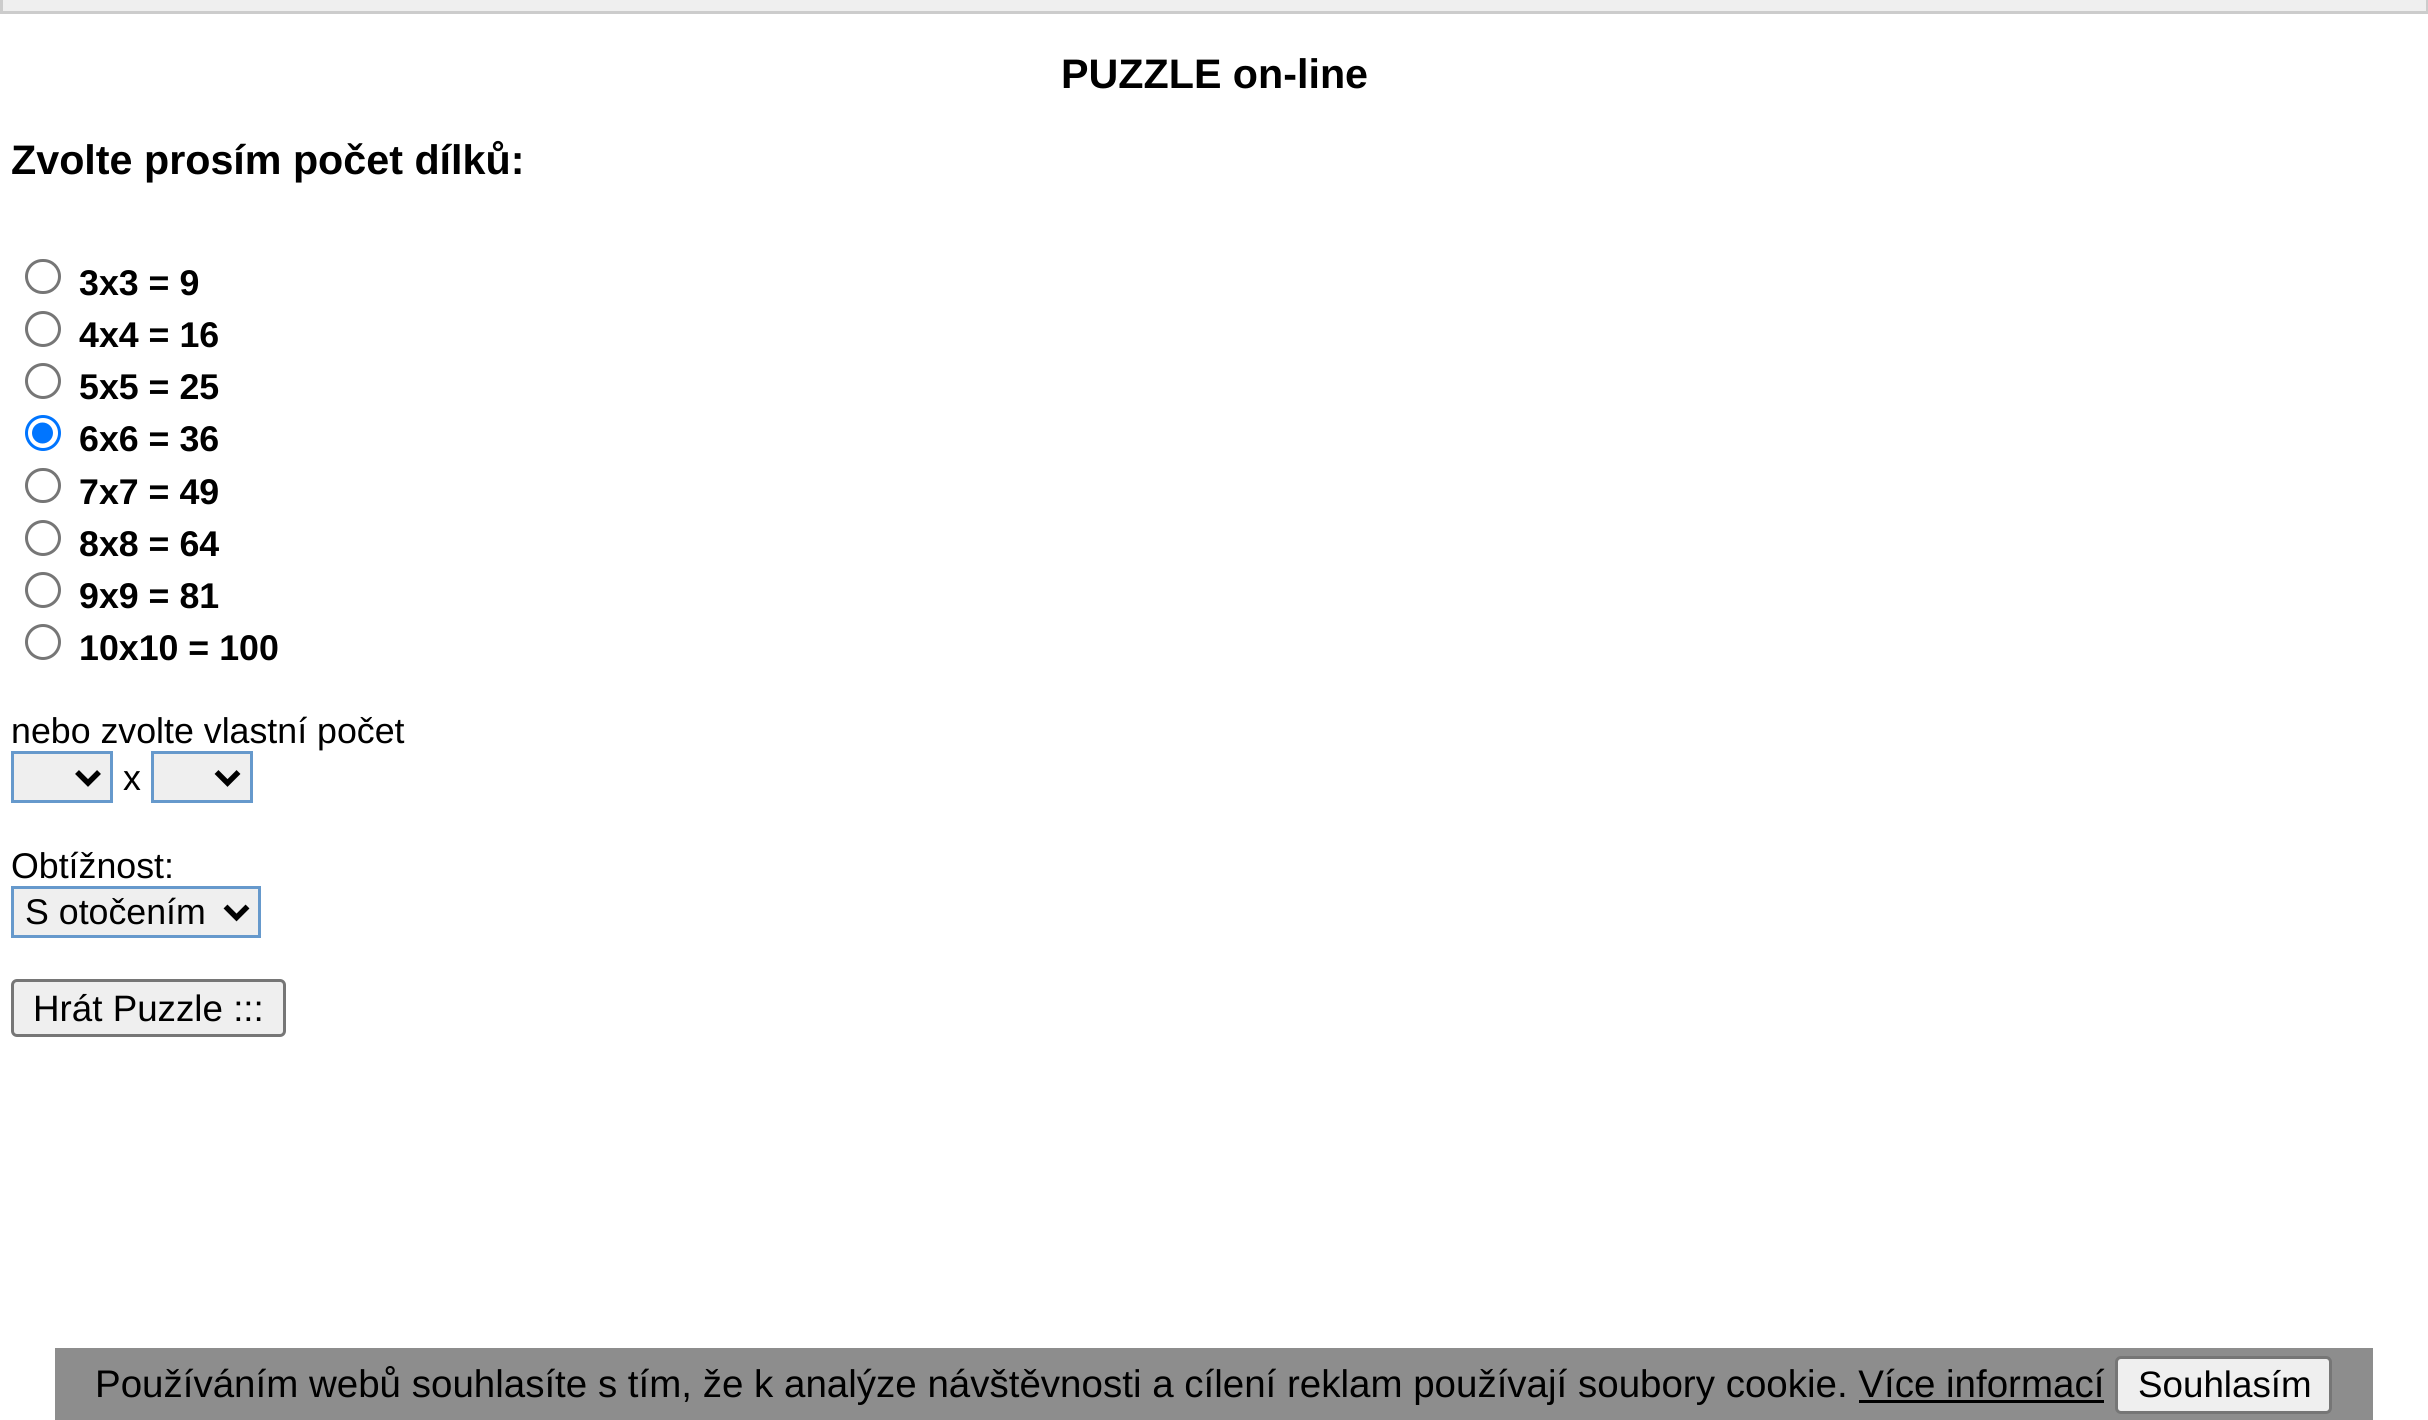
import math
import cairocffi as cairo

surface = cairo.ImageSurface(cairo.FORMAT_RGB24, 2428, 1420)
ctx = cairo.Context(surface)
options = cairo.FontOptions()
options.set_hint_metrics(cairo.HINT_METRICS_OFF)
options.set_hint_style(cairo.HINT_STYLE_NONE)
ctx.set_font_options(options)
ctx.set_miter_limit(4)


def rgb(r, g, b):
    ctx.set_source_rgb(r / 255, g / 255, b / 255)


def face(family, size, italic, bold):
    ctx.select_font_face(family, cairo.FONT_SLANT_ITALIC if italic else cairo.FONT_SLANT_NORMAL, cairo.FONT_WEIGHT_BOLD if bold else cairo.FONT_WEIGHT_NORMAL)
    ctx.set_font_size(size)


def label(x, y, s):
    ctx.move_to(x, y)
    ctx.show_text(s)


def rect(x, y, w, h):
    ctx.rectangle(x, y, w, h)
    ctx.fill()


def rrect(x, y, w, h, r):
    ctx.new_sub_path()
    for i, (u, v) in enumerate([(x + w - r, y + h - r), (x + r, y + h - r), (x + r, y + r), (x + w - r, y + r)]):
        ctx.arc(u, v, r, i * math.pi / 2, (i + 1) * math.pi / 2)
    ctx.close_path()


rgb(255, 255, 255)
ctx.paint()
rgb(239, 239, 239)
rect(3, 0, 2423, 11)
rgb(204, 204, 204)
rect(2426, 0, 2, 14)
rect(0, 11, 2428, 3)
rect(0, 0, 3, 14)
face('Liberation Sans', 41.25, 0, 1)
rgb(0, 0, 0)
label(1061, 88, 'PUZZLE on-line')
label(11, 174, 'Zvolte prosím počet dílků:')
rrect(26.5, 260.5, 33, 32, 16)
rgb(118, 118, 118)
ctx.set_line_width(3)
ctx.stroke()
face('Liberation Sans', 35.75, 0, 1)
rgb(0, 0, 0)
label(79, 295, '3x3 = 9')
ctx.new_path()
ctx.arc(43, 329, 16.5, 0, 2 * math.pi)
rgb(118, 118, 118)
ctx.stroke()
rgb(0, 0, 0)
label(79, 347, '4x4 = 16')
ctx.new_path()
ctx.arc(43, 381, 16.5, 0, 2 * math.pi)
rgb(118, 118, 118)
ctx.stroke()
rgb(0, 0, 0)
label(79, 399, '5x5 = 25')
ctx.new_path()
ctx.arc(43, 433, 16.5, 0, 2 * math.pi)
rgb(0, 117, 255)
ctx.stroke()
ctx.arc(42.5, 433, 10.5, 0, 2 * math.pi)
ctx.fill()
rgb(0, 0, 0)
label(79, 451, '6x6 = 36')
rrect(26.5, 469.5, 33, 32, 16)
rgb(118, 118, 118)
ctx.stroke()
rgb(0, 0, 0)
label(79, 504, '7x7 = 49')
ctx.new_path()
ctx.arc(43, 538, 16.5, 0, 2 * math.pi)
rgb(118, 118, 118)
ctx.stroke()
rgb(0, 0, 0)
label(79, 556, '8x8 = 64')
ctx.new_path()
ctx.arc(43, 590, 16.5, 0, 2 * math.pi)
rgb(118, 118, 118)
ctx.stroke()
rgb(0, 0, 0)
label(79, 608, '9x9 = 81')
ctx.new_path()
ctx.arc(43, 642, 16.5, 0, 2 * math.pi)
rgb(118, 118, 118)
ctx.stroke()
rgb(0, 0, 0)
label(79, 660, '10x10 = 100')
face('Liberation Sans', 35.75, 0, 0)
label(11, 743, 'nebo zvolte vlastní počet')
rgb(239, 239, 239)
ctx.rectangle(12.5, 752.5, 99, 49)
ctx.fill_preserve()
rgb(102, 153, 204)
ctx.stroke()
ctx.new_path()
ctx.move_to(77, 772)
ctx.line_to(88, 783)
ctx.line_to(99, 772)
rgb(0, 0, 0)
ctx.set_line_width(5.5)
ctx.stroke()
label(123, 790, 'x')
rgb(239, 239, 239)
ctx.rectangle(152.5, 752.5, 99, 49)
ctx.fill_preserve()
rgb(102, 153, 204)
ctx.set_line_width(3)
ctx.stroke()
ctx.new_path()
ctx.move_to(216.5, 772)
ctx.line_to(227.5, 783)
ctx.line_to(238.5, 772)
rgb(0, 0, 0)
ctx.set_line_width(5.5)
ctx.stroke()
label(11, 878, 'Obtížnost:')
rgb(239, 239, 239)
ctx.rectangle(12.5, 887.5, 247, 49)
ctx.fill_preserve()
rgb(102, 153, 204)
ctx.set_line_width(3)
ctx.stroke()
ctx.new_path()
ctx.move_to(225.5, 906.5)
ctx.line_to(236.5, 917.5)
ctx.line_to(247.5, 906.5)
rgb(0, 0, 0)
ctx.set_line_width(5.5)
ctx.stroke()
label(25, 924, 'S otočením')
rgb(239, 239, 239)
rrect(12.5, 980.5, 272, 55, 4.5)
ctx.fill_preserve()
rgb(118, 118, 118)
ctx.set_line_width(3)
ctx.stroke()
face('Liberation Sans', 36.75, 0, 0)
rgb(0, 0, 0)
label(33, 1021, 'Hrát Puzzle :::')
rgb(141, 141, 141)
rect(55, 1348, 2318, 72)
face('Liberation Sans', 38.5, 0, 0)
rgb(0, 0, 0)
label(95, 1397, 'Používáním webů souhlasíte s tím, že k analýze návštěvnosti a cílení reklam používají soubory cookie. Více informací')
rgb(239, 239, 239)
rrect(2116.5, 1357.5, 214, 55, 4.5)
ctx.fill_preserve()
rgb(118, 118, 118)
ctx.stroke()
face('Liberation Sans', 36.75, 0, 0)
rgb(0, 0, 0)
label(2138, 1397, 'Souhlasím')
rect(1859, 1400, 245, 3)
surface.write_to_png('render.png')
